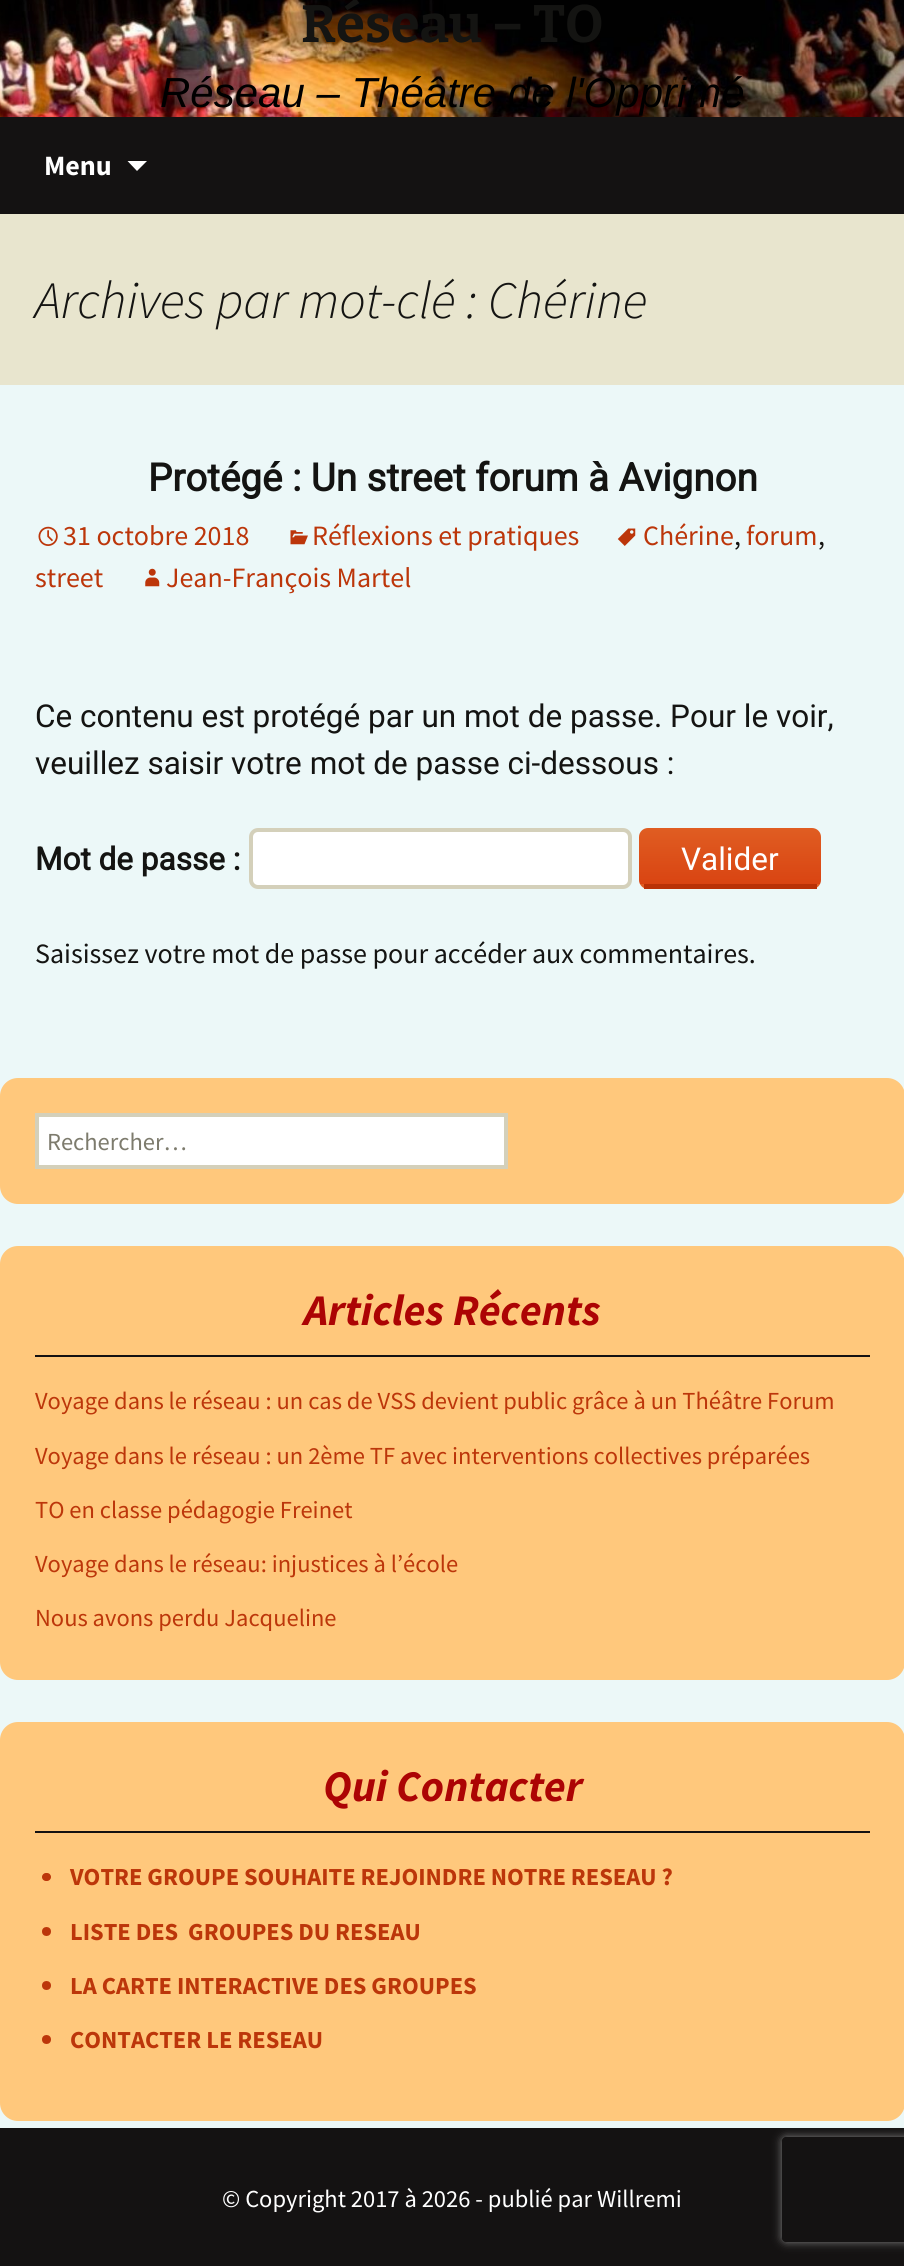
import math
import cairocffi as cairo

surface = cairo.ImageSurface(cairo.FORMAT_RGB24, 904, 2266)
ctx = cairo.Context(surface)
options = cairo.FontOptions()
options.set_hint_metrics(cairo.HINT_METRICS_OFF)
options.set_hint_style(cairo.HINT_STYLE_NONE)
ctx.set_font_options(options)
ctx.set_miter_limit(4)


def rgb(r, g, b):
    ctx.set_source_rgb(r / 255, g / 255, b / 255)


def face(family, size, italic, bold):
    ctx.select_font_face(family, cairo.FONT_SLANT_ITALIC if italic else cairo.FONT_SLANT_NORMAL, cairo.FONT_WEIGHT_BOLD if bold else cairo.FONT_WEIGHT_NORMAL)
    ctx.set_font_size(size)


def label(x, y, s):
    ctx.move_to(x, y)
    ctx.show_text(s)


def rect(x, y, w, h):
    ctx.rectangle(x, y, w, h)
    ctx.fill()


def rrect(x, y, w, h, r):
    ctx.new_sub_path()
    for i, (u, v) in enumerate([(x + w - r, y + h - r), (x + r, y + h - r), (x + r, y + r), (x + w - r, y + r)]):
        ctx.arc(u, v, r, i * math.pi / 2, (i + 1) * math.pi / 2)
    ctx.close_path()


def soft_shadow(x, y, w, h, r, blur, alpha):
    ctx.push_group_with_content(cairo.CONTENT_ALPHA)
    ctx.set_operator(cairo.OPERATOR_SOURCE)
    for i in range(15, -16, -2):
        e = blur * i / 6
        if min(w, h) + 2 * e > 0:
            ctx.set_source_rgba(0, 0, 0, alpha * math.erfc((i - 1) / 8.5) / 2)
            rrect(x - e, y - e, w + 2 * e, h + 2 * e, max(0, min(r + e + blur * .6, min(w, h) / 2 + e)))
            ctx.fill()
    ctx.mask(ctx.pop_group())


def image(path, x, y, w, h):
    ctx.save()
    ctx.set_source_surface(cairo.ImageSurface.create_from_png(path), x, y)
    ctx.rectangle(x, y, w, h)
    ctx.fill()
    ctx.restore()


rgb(236, 248, 248)
ctx.paint()
image('image0.png', 0, 0, 904, 117)
face('Bitter Thin', 52.5, 0, 0)
rgb(20, 20, 18)
label(301, 42, 'Réseau – TO')
face('Liberation Sans', 42, 1, 0)
rgb(0, 0, 0)
label(160, 107, 'Réseau – Théâtre de l\'Opprimé')
rgb(20, 18, 18)
rect(0, 117, 904, 97)
face('Source Sans Pro', 28, 0, 1)
rgb(255, 255, 255)
label(44, 175, 'Menu')
ctx.new_path()
ctx.move_to(127.5, 161)
ctx.line_to(147, 161)
ctx.line_to(137, 171)
ctx.close_path()
ctx.fill()
rgb(232, 229, 206)
rect(0, 214, 904, 171)
face('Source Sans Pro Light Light', 52.5, 1, 0)
rgb(20, 20, 18)
label(35, 318, 'Archives par mot-clé : Chérine')
face('Roboto', 38.5, 0, 1)
label(148, 491, 'Protégé : Un street forum à Avignon')
image('image1.png', 617, 528, 19, 18)
face('Source Sans Pro', 28, 0, 0)
rgb(188, 54, 10)
label(643, 545, 'Chérine')
rgb(20, 20, 18)
label(734, 545, ',')
rgb(188, 54, 10)
label(746, 545, 'forum')
rgb(20, 20, 18)
label(818, 545, ',')
rgb(188, 54, 10)
label(35, 587, 'street')
image('image2.png', 38, 526, 20, 20)
label(63, 545, '31 octobre 2018')
image('image3.png', 290, 530, 18, 15)
label(312, 545, 'Réflexions et pratiques')
image('image4.png', 145, 568, 15, 19)
label(166, 587, 'Jean-François Martel')
face('Roboto', 31.5, 0, 0)
rgb(20, 20, 18)
label(35, 727, 'Ce contenu est protégé par un mot de passe. Pour le voir,')
label(35, 774, 'veuillez saisir votre mot de passe ci-dessous :')
face('Roboto', 31.5, 0, 1)
label(35, 870, 'Mot de passe :')
rgb(255, 255, 255)
rrect(251, 830, 379, 57, 7)
ctx.fill_preserve()
rgb(212, 208, 186)
ctx.set_line_width(4)
ctx.stroke()
ctx.save()
rrect(639, 828, 182, 61, 9)
ctx.clip()
gradient = cairo.LinearGradient(730, 828, 730, 884)
gradient.add_color_stop_rgba(0, 0.878, 0.365, 0.133, 1)
gradient.add_color_stop_rgba(1, 0.851, 0.267, 0.071, 1)
ctx.set_source(gradient)
ctx.new_path()
ctx.move_to(648, 828)
ctx.line_to(812, 828)
ctx.curve_to(817, 828, 821, 832, 821, 837)
ctx.line_to(821, 884)
ctx.line_to(639, 884)
ctx.line_to(639, 837)
ctx.curve_to(639, 832, 643, 828, 648, 828)
ctx.close_path()
ctx.fill()
gradient = cairo.LinearGradient(730, 884, 730, 940)
gradient.add_color_stop_rgba(0, 0.878, 0.365, 0.133, 1)
gradient.add_color_stop_rgba(1, 0.851, 0.267, 0.071, 1)
ctx.set_source(gradient)
rect(639, 884, 182, 4)
ctx.restore()
rgb(185, 50, 7)
rect(644, 884, 173, 5)
face('Roboto', 31.5, 0, 0)
rgb(255, 255, 255)
label(681, 870, 'Valider')
face('Source Sans Pro', 28, 0, 0)
rgb(20, 20, 18)
label(35, 963, 'Saisissez votre mot de passe pour accéder aux commentaires.')
rgb(255, 200, 124)
rrect(0, 1078, 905, 126, 18)
ctx.fill()
rgb(255, 255, 255)
ctx.rectangle(37, 1115, 469, 52)
ctx.fill_preserve()
rgb(212, 208, 186)
ctx.stroke()
face('Source Sans Pro', 24.5, 0, 0)
rgb(125, 123, 109)
label(47, 1150, 'Rechercher…')
rgb(255, 200, 124)
rrect(0, 1246, 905, 434, 18)
ctx.fill()
rgb(20, 18, 18)
rect(35, 1355, 835, 2)
face('Source Sans Pro', 43.75, 1, 1)
rgb(172, 4, 4)
label(304, 1325, 'Articles Récents')
face('Source Sans Pro', 24.5, 0, 0)
rgb(188, 54, 10)
label(35, 1409, 'Voyage dans le réseau : un cas de VSS devient public grâce à un Théâtre Forum')
label(35, 1464, 'Voyage dans le réseau : un 2ème TF avec interventions collectives préparées')
label(35, 1518, 'TO en classe pédagogie Freinet')
label(35, 1572, 'Voyage dans le réseau: injustices à l’école')
label(35, 1626, 'Nous avons perdu Jacqueline')
rgb(255, 200, 124)
rrect(0, 1722, 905, 399, 18)
ctx.fill()
rgb(20, 18, 18)
rect(35, 1831, 835, 2)
face('Source Sans Pro', 43.75, 1, 1)
rgb(172, 4, 4)
label(323, 1801, 'Qui Contacter')
rgb(188, 54, 10)
rrect(42, 1873, 9, 8, 4)
ctx.fill()
face('Source Sans Pro', 24.5, 0, 1)
label(70, 1885, 'VOTRE GROUPE SOUHAITE REJOINDRE NOTRE RESEAU ?')
ctx.new_path()
ctx.arc(46.5, 1931.5, 4.5, 0, 2 * math.pi)
ctx.fill()
label(70, 1940, 'LISTE DES  GROUPES DU RESEAU')
ctx.new_path()
ctx.arc(46.5, 1985.5, 4.5, 0, 2 * math.pi)
ctx.fill()
label(70, 1994, 'LA CARTE INTERACTIVE DES GROUPES')
ctx.new_path()
ctx.arc(46.5, 2039.5, 4.5, 0, 2 * math.pi)
ctx.fill()
label(70, 2048, 'CONTACTER LE RESEAU')
rgb(20, 18, 18)
rect(0, 2128, 904, 138)
face('Source Sans Pro', 24.5, 0, 0)
rgb(255, 255, 255)
label(222, 2207, '© Copyright 2017 à 2026 - publié par Willremi')
ctx.save()
ctx.set_fill_rule(cairo.FILL_RULE_EVEN_ODD)
ctx.new_path()
ctx.move_to(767, 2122)
ctx.line_to(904, 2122)
ctx.line_to(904, 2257)
ctx.line_to(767, 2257)
ctx.close_path()
ctx.move_to(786, 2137)
ctx.line_to(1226, 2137)
ctx.curve_to(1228, 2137, 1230, 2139, 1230, 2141)
ctx.line_to(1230, 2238)
ctx.curve_to(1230, 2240, 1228, 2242, 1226, 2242)
ctx.line_to(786, 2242)
ctx.curve_to(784, 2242, 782, 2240, 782, 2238)
ctx.line_to(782, 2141)
ctx.curve_to(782, 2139, 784, 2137, 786, 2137)
ctx.close_path()
ctx.clip()
rgb(128, 128, 128)
soft_shadow(782, 2137, 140, 105, 4, 4.5, 1)
ctx.restore()
surface.write_to_png('render.png')
